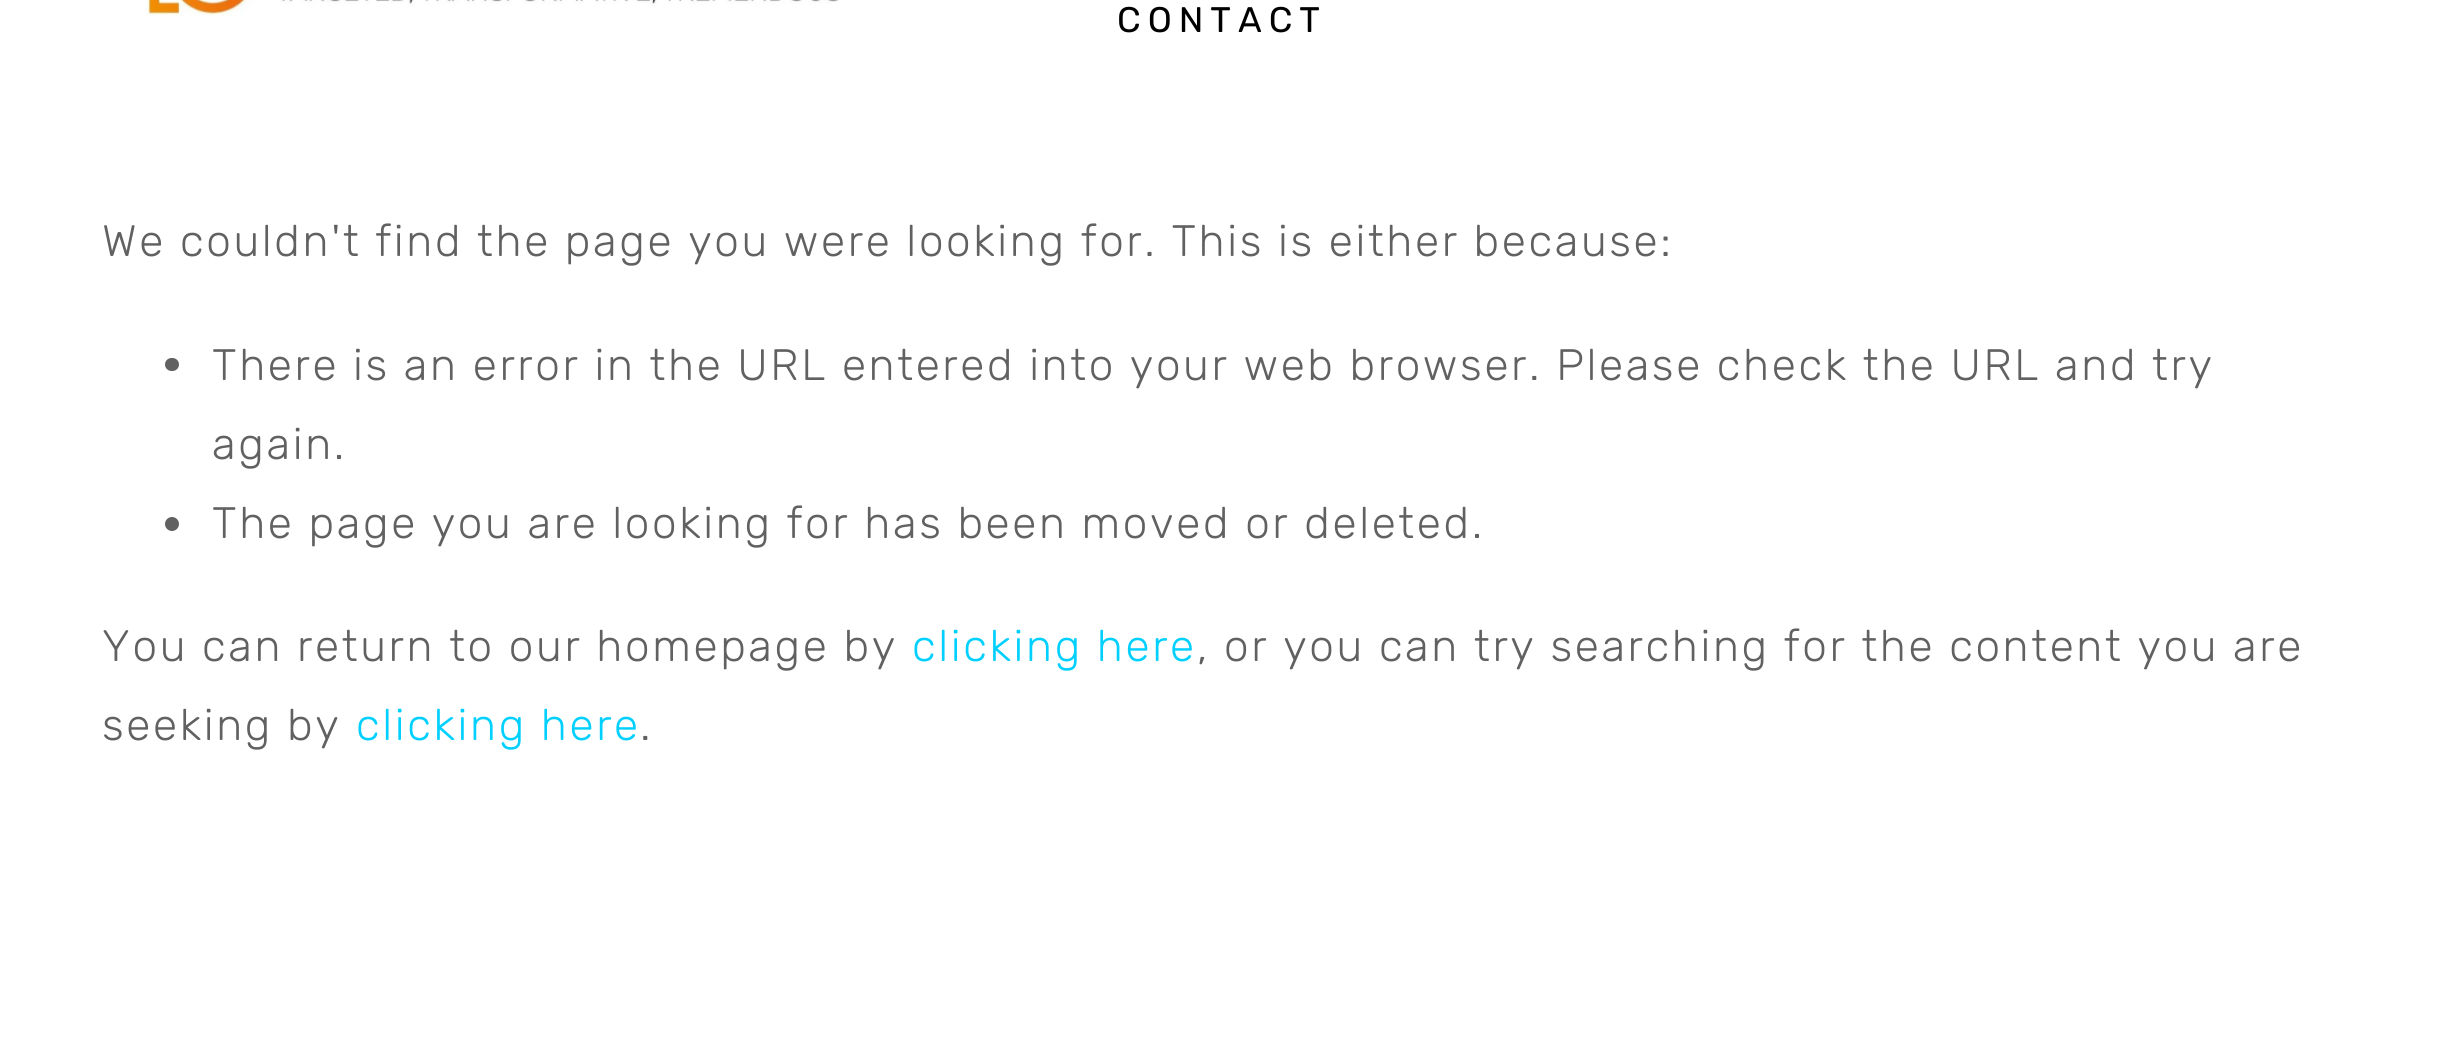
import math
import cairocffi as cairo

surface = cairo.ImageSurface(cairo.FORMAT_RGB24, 2437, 1064)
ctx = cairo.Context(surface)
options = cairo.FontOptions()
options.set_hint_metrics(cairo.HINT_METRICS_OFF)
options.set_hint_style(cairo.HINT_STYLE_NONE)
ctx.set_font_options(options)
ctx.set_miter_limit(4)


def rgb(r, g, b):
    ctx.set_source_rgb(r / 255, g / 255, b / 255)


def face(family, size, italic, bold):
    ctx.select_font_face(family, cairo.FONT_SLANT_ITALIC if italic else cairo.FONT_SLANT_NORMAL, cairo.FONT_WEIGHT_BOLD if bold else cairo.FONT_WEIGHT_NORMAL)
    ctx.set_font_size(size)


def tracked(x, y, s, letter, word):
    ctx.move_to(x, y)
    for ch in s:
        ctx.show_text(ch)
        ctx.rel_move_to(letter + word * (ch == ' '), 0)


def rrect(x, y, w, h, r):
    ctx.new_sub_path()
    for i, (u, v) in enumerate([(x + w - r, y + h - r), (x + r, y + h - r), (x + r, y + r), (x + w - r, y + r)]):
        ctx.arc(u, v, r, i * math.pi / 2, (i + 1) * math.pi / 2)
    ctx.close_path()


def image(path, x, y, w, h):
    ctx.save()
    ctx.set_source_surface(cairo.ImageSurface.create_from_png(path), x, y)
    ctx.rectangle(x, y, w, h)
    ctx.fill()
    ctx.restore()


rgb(255, 255, 255)
ctx.paint()
image('image0.png', 145, 0, 694, 17)
face('Rubik', 35.5, 0, 0)
rgb(0, 0, 0)
tracked(1117, 32, 'CONTACT', 7, 0)
face('Rubik Light', 44, 0, 0)
rgb(97, 97, 97)
tracked(102, 256, 'We couldn\'t find the page you were looking for. This is either because:', 2.65, 0)
rrect(165, 358, 14, 13, 6.5)
ctx.fill()
tracked(212, 380, 'There is an error in the URL entered into your web browser. Please check the URL and try', 2.65, 0)
tracked(212, 459, 'again.', 2.65, 0)
ctx.new_path()
ctx.arc(172, 524, 7, 0, 2 * math.pi)
ctx.fill()
tracked(212, 538, 'The page you are looking for has been moved or deleted.', 2.65, 0)
tracked(102, 661, 'You can return to our homepage by', 2.65, 0)
rgb(0, 208, 255)
tracked(912, 661, 'clicking here', 2.65, 0)
rgb(97, 97, 97)
tracked(1197, 661, ', or you can try searching for the content you are', 2.65, 0)
tracked(102, 740, 'seeking by', 2.65, 0)
rgb(0, 208, 255)
tracked(356, 740, 'clicking here', 2.65, 0)
rgb(97, 97, 97)
tracked(640, 740, '.', 2.65, 0)
surface.write_to_png('render.png')
